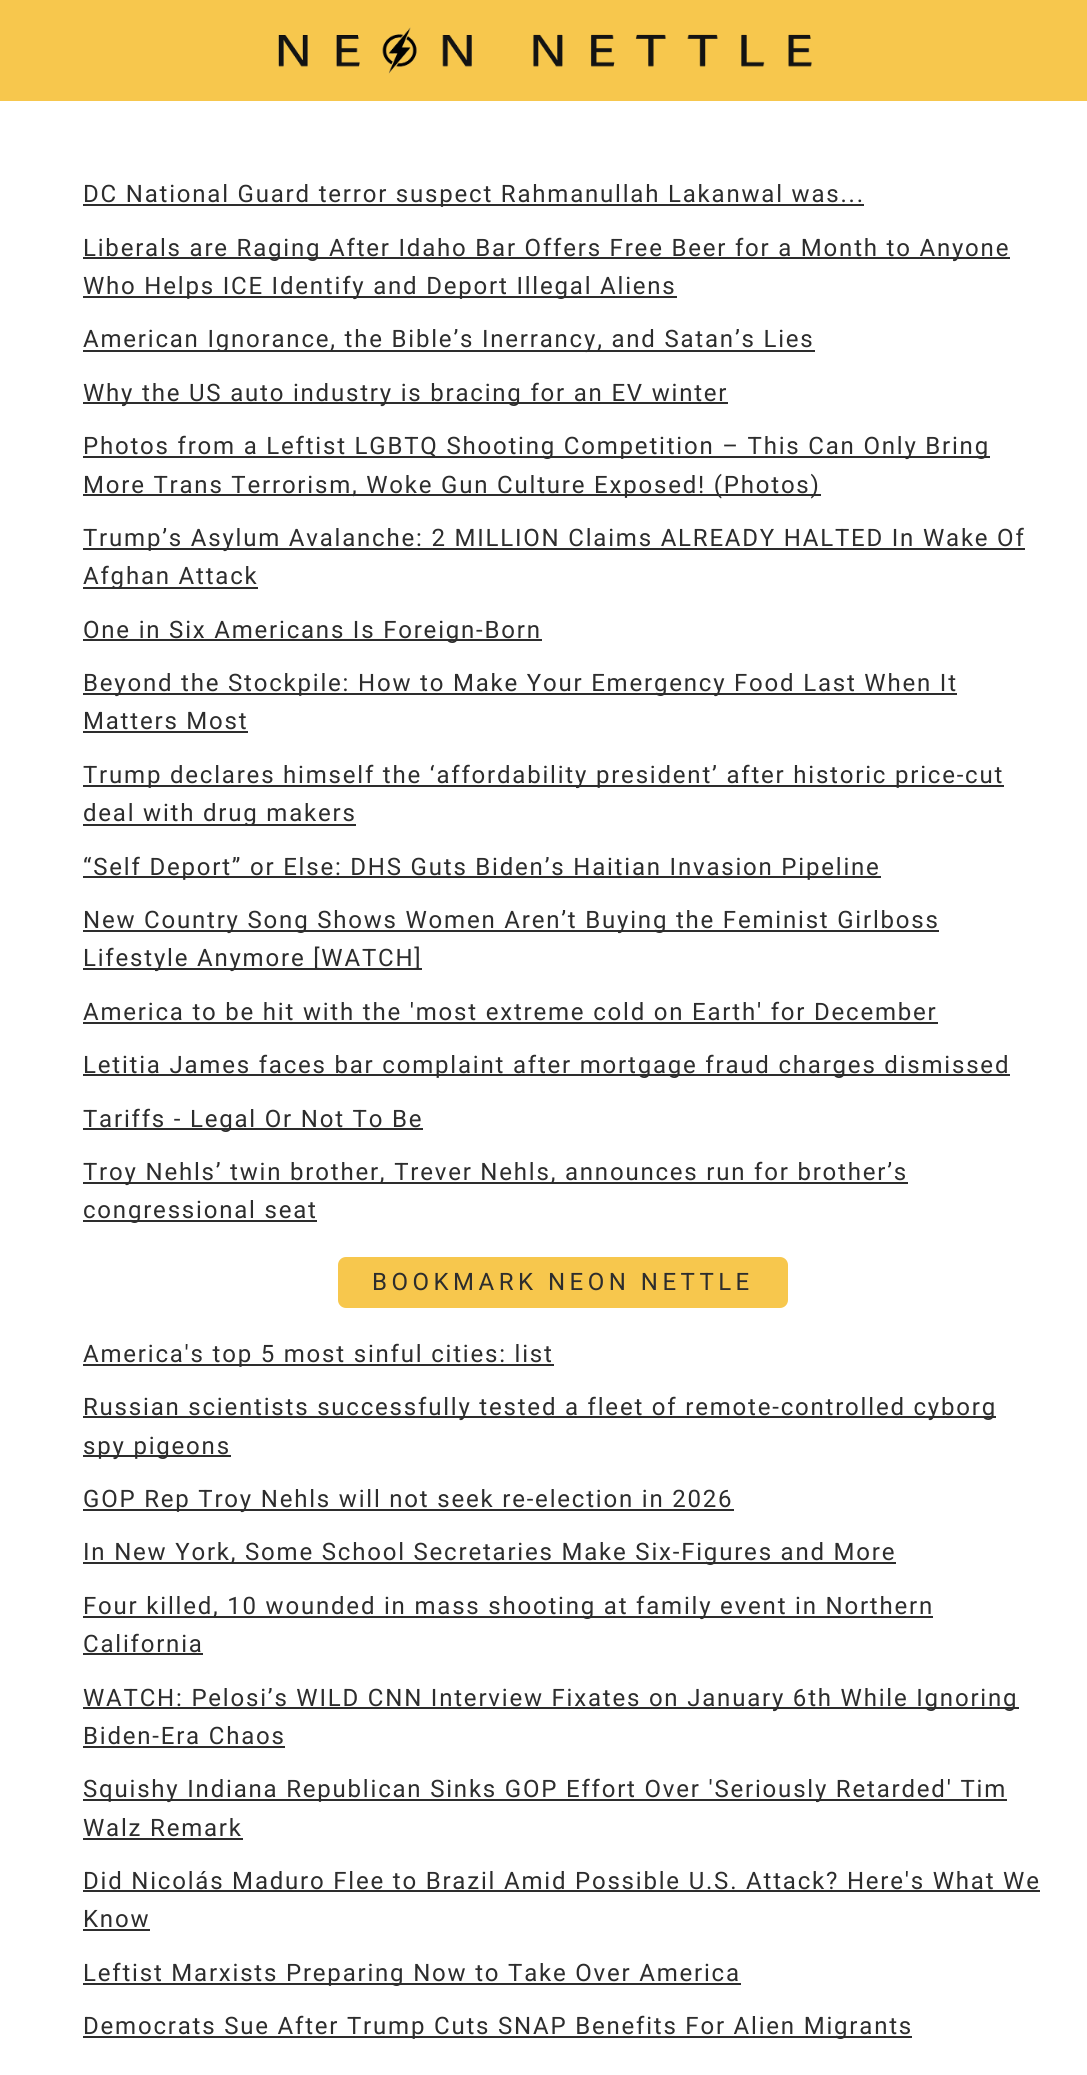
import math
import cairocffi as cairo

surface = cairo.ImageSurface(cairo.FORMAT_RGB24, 1087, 2075)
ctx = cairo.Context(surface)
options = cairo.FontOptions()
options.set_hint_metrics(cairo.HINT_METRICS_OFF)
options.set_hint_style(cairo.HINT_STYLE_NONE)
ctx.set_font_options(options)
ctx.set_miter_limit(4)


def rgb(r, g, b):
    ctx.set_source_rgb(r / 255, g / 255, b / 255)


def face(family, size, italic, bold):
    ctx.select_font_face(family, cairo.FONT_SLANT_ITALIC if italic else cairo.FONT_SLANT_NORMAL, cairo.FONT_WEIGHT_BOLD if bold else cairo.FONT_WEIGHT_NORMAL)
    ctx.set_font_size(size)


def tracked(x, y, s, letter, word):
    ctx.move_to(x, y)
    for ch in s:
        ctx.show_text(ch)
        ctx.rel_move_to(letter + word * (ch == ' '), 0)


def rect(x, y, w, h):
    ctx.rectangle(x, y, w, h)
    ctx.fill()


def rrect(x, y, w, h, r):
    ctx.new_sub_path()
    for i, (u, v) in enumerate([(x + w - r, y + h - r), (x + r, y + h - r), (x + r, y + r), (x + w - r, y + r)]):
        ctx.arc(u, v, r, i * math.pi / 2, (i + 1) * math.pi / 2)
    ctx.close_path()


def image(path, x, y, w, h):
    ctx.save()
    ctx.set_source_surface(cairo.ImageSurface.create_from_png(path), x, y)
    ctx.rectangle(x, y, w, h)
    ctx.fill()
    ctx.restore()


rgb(255, 255, 255)
ctx.paint()
rgb(247, 199, 77)
rect(0, 0, 1087, 101)
image('image0.png', 278, 27, 534, 47)
rgb(45, 45, 45)
rect(83, 204, 781, 2)
face('Roboto', 24, 0, 0)
tracked(83, 202, 'DC National Guard terror suspect Rahmanullah Lakanwal was...', 1.8, 0)
rect(83, 257, 927, 2)
tracked(83, 256, 'Liberals are Raging After Idaho Bar Offers Free Beer for a Month to Anyone', 1.8, 0)
rect(83, 296, 594, 2)
tracked(83, 294, 'Who Helps ICE Identify and Deport Illegal Aliens', 1.8, 0)
rect(83, 350, 732, 2)
tracked(83, 347, 'American Ignorance, the Bible’s Inerrancy, and Satan’s Lies', 1.8, 0)
rect(83, 402, 645, 2)
tracked(83, 401, 'Why the US auto industry is bracing for an EV winter', 1.8, 0)
rect(83, 456, 907, 2)
tracked(83, 454, 'Photos from a Leftist LGBTQ Shooting Competition – This Can Only Bring', 1.8, 0)
rect(83, 494, 738, 2)
tracked(83, 493, 'More Trans Terrorism, Woke Gun Culture Exposed! (Photos)', 1.8, 0)
rect(83, 548, 942, 2)
tracked(83, 546, 'Trump’s Asylum Avalanche: 2 MILLION Claims ALREADY HALTED In Wake Of', 1.8, 0)
rect(83, 587, 175, 2)
tracked(83, 584, 'Afghan Attack', 1.8, 0)
rect(83, 639, 459, 2)
tracked(83, 638, 'One in Six Americans Is Foreign-Born', 1.8, 0)
rect(83, 693, 874, 2)
tracked(83, 691, 'Beyond the Stockpile: How to Make Your Emergency Food Last When It', 1.8, 0)
tracked(83, 729, 'Matters Most', 1.8, 0)
rect(83, 731, 165, 2)
rect(83, 785, 921, 2)
tracked(83, 783, 'Trump declares himself the ‘affordability president’ after historic price-cut', 1.8, 0)
rect(83, 824, 273, 2)
tracked(83, 821, 'deal with drug makers', 1.8, 0)
rect(83, 876, 798, 2)
tracked(83, 875, '“Self Deport” or Else: DHS Guts Biden’s Haitian Invasion Pipeline', 1.8, 0)
rect(83, 930, 856, 2)
tracked(83, 928, 'New Country Song Shows Women Aren’t Buying the Feminist Girlboss', 1.8, 0)
rect(83, 968, 339, 2)
tracked(83, 966, 'Lifestyle Anymore [WATCH]', 1.8, 0)
tracked(83, 1020, 'America to be hit with the \'most extreme cold on Earth\' for December', 1.8, 0)
rect(83, 1022, 855, 2)
rect(83, 1074, 927, 2)
tracked(83, 1073, 'Letitia James faces bar complaint after mortgage fraud charges dismissed', 1.8, 0)
rect(83, 1128, 340, 2)
tracked(83, 1127, 'Tariffs - Legal Or Not To Be', 1.8, 0)
rect(83, 1182, 825, 2)
tracked(83, 1180, 'Troy Nehls’ twin brother, Trever Nehls, announces run for brother’s', 1.8, 0)
rect(83, 1220, 234, 2)
tracked(83, 1218, 'congressional seat', 1.8, 0)
rgb(247, 199, 77)
rrect(338, 1257, 450, 51, 8)
ctx.fill()
rgb(45, 45, 45)
tracked(372, 1290, 'BOOKMARK NEON NETTLE', 4.5, 0)
rect(83, 1364, 471, 2)
tracked(83, 1362, 'America\'s top 5 most sinful cities: list', 1.8, 0)
rect(83, 1416, 913, 2)
tracked(83, 1415, 'Russian scientists successfully tested a fleet of remote-controlled cyborg', 1.8, 0)
rect(83, 1455, 148, 2)
tracked(83, 1454, 'spy pigeons', 1.8, 0)
rect(83, 1509, 651, 2)
tracked(83, 1507, 'GOP Rep Troy Nehls will not seek re-election in 2026', 1.8, 0)
rect(83, 1562, 813, 2)
tracked(83, 1560, 'In New York, Some School Secretaries Make Six-Figures and More', 1.8, 0)
rect(83, 1616, 850, 2)
tracked(83, 1614, 'Four killed, 10 wounded in mass shooting at family event in Northern', 1.8, 0)
tracked(83, 1652, 'California', 1.8, 0)
rect(83, 1653, 120, 2)
rect(83, 1707, 936, 2)
tracked(83, 1706, 'WATCH: Pelosi’s WILD CNN Interview Fixates on January 6th While Ignoring', 1.8, 0)
tracked(83, 1744, 'Biden-Era Chaos', 1.8, 0)
rect(83, 1746, 202, 2)
rect(83, 1799, 924, 2)
tracked(83, 1797, 'Squishy Indiana Republican Sinks GOP Effort Over \'Seriously Retarded\' Tim', 1.8, 0)
tracked(83, 1836, 'Walz Remark', 1.8, 0)
rect(83, 1838, 160, 2)
tracked(83, 1889, 'Did Nicolás Maduro Flee to Brazil Amid Possible U.S. Attack? Here\'s What We', 1.8, 0)
rect(83, 1890, 957, 2)
tracked(83, 1927, 'Know', 1.8, 0)
rect(83, 1929, 67, 2)
rect(83, 1983, 658, 2)
tracked(83, 1981, 'Leftist Marxists Preparing Now to Take Over America', 1.8, 0)
rect(83, 2036, 829, 2)
tracked(83, 2034, 'Democrats Sue After Trump Cuts SNAP Benefits For Alien Migrants', 1.8, 0)
surface.write_to_png('render.png')
